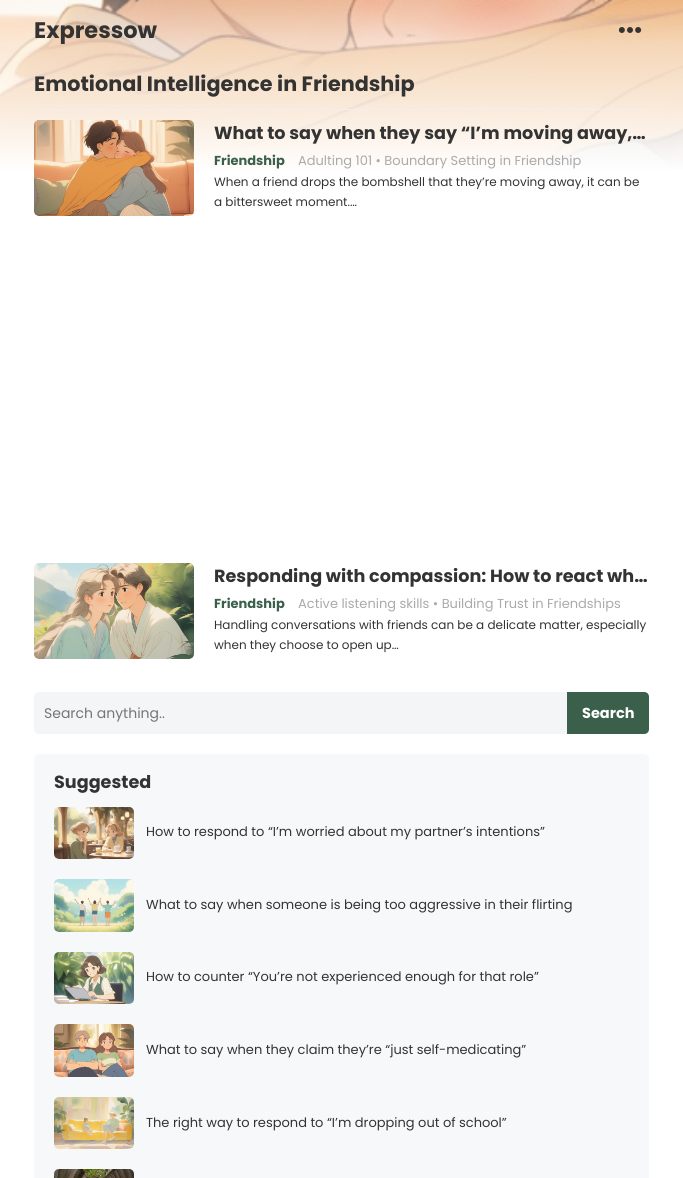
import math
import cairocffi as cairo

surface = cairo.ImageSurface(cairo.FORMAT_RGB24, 683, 1178)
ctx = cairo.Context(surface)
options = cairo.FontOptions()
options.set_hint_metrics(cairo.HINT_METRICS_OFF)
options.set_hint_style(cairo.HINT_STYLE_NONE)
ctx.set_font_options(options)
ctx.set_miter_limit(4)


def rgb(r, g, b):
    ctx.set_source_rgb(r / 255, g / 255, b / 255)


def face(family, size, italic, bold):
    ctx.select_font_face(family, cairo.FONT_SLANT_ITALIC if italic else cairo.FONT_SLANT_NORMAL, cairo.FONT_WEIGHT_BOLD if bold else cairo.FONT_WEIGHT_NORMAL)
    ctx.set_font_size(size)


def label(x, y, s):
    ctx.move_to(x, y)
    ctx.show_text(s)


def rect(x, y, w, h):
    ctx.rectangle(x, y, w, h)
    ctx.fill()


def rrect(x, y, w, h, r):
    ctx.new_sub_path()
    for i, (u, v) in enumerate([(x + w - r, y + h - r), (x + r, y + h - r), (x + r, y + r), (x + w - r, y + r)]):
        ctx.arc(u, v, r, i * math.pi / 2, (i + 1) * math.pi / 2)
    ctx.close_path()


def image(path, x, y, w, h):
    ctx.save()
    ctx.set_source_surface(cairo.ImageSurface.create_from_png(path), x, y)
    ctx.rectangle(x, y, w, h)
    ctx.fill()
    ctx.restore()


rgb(255, 255, 255)
ctx.paint()
image('image0.png', 0, 0, 683, 171)
gradient = cairo.LinearGradient(341, 0, 342, 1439)
gradient.add_color_stop_rgba(0, 1, 1, 1, 0.3)
gradient.add_color_stop_rgba(0.03, 1, 1, 1, 0.6)
gradient.add_color_stop_rgba(0.12, 1, 1, 1, 1)
ctx.set_source(gradient)
rect(0, 0, 683, 171)
face('Poppins', 22.5, 0, 1)
rgb(51, 51, 51)
label(34, 38, 'Expressow')
image('image1.png', 618, 27, 24, 6)
rgb(240, 240, 240)
rect(34, 109, 615, 1)
face('Poppins', 20.75, 0, 1)
rgb(51, 51, 51)
label(34, 91, 'Emotional Intelligence in Friendship')
image('image2.png', 34, 120, 160, 96)
face('Poppins', 17.6, 0, 1)
label(214, 139, 'What to say when they say “I’m moving away,…')
face('Poppins', 13, 0, 1)
rgb(58, 95, 75)
label(214, 165, 'Friendship')
face('Poppins', 13, 0, 0)
rgb(170, 170, 170)
label(298, 165, 'Adulting 101 • Boundary Setting in Friendship')
face('Poppins', 12, 0, 0)
rgb(51, 51, 51)
label(214, 186, 'When a friend drops the bombshell that they’re moving away, it can be')
label(214, 206, 'a bittersweet moment.…')
image('image3.png', 34, 563, 160, 96)
face('Poppins', 17.6, 0, 1)
label(214, 582, 'Responding with compassion: How to react wh…')
face('Poppins', 13, 0, 1)
rgb(58, 95, 75)
label(214, 608, 'Friendship')
face('Poppins', 13, 0, 0)
rgb(170, 170, 170)
label(298, 608, 'Active listening skills • Building Trust in Friendships')
face('Poppins', 12, 0, 0)
rgb(51, 51, 51)
label(214, 629, 'Handling conversations with friends can be a delicate matter, especially')
label(214, 649, 'when they choose to open up…')
rgb(244, 245, 246)
rrect(34, 692, 615, 42, 5)
ctx.fill()
face('Poppins', 14, 0, 0)
rgb(117, 117, 117)
label(44, 718, 'Search anything..')
rgb(58, 95, 75)
ctx.new_path()
ctx.move_to(567, 692)
ctx.line_to(644, 692)
ctx.curve_to(647, 692, 649, 694, 649, 697)
ctx.line_to(649, 729)
ctx.curve_to(649, 732, 647, 734, 644, 734)
ctx.line_to(567, 734)
ctx.close_path()
ctx.fill()
face('Poppins', 14.5, 0, 1)
rgb(255, 255, 255)
label(582, 718, 'Search')
rgb(247, 248, 249)
rrect(34, 754, 615, 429, 5)
ctx.fill()
face('Poppins', 17.6, 0, 1)
rgb(51, 51, 51)
label(54, 788, 'Suggested')
image('image4.png', 54, 807, 80, 52)
face('Poppins', 13, 0, 0)
label(146, 836, 'How to respond to “I’m worried about my partner’s intentions”')
image('image5.png', 54, 879, 80, 53)
label(146, 909, 'What to say when someone is being too aggressive in their flirting')
image('image6.png', 54, 952, 80, 52)
label(146, 981, 'How to counter “You’re not experienced enough for that role”')
image('image7.png', 54, 1024, 80, 53)
label(146, 1054, 'What to say when they claim they’re “just self-medicating”')
image('image8.png', 54, 1097, 80, 52)
label(146, 1127, 'The right way to respond to “I’m dropping out of school”')
image('image9.png', 54, 1169, 80, 9)
surface.write_to_png('render.png')
